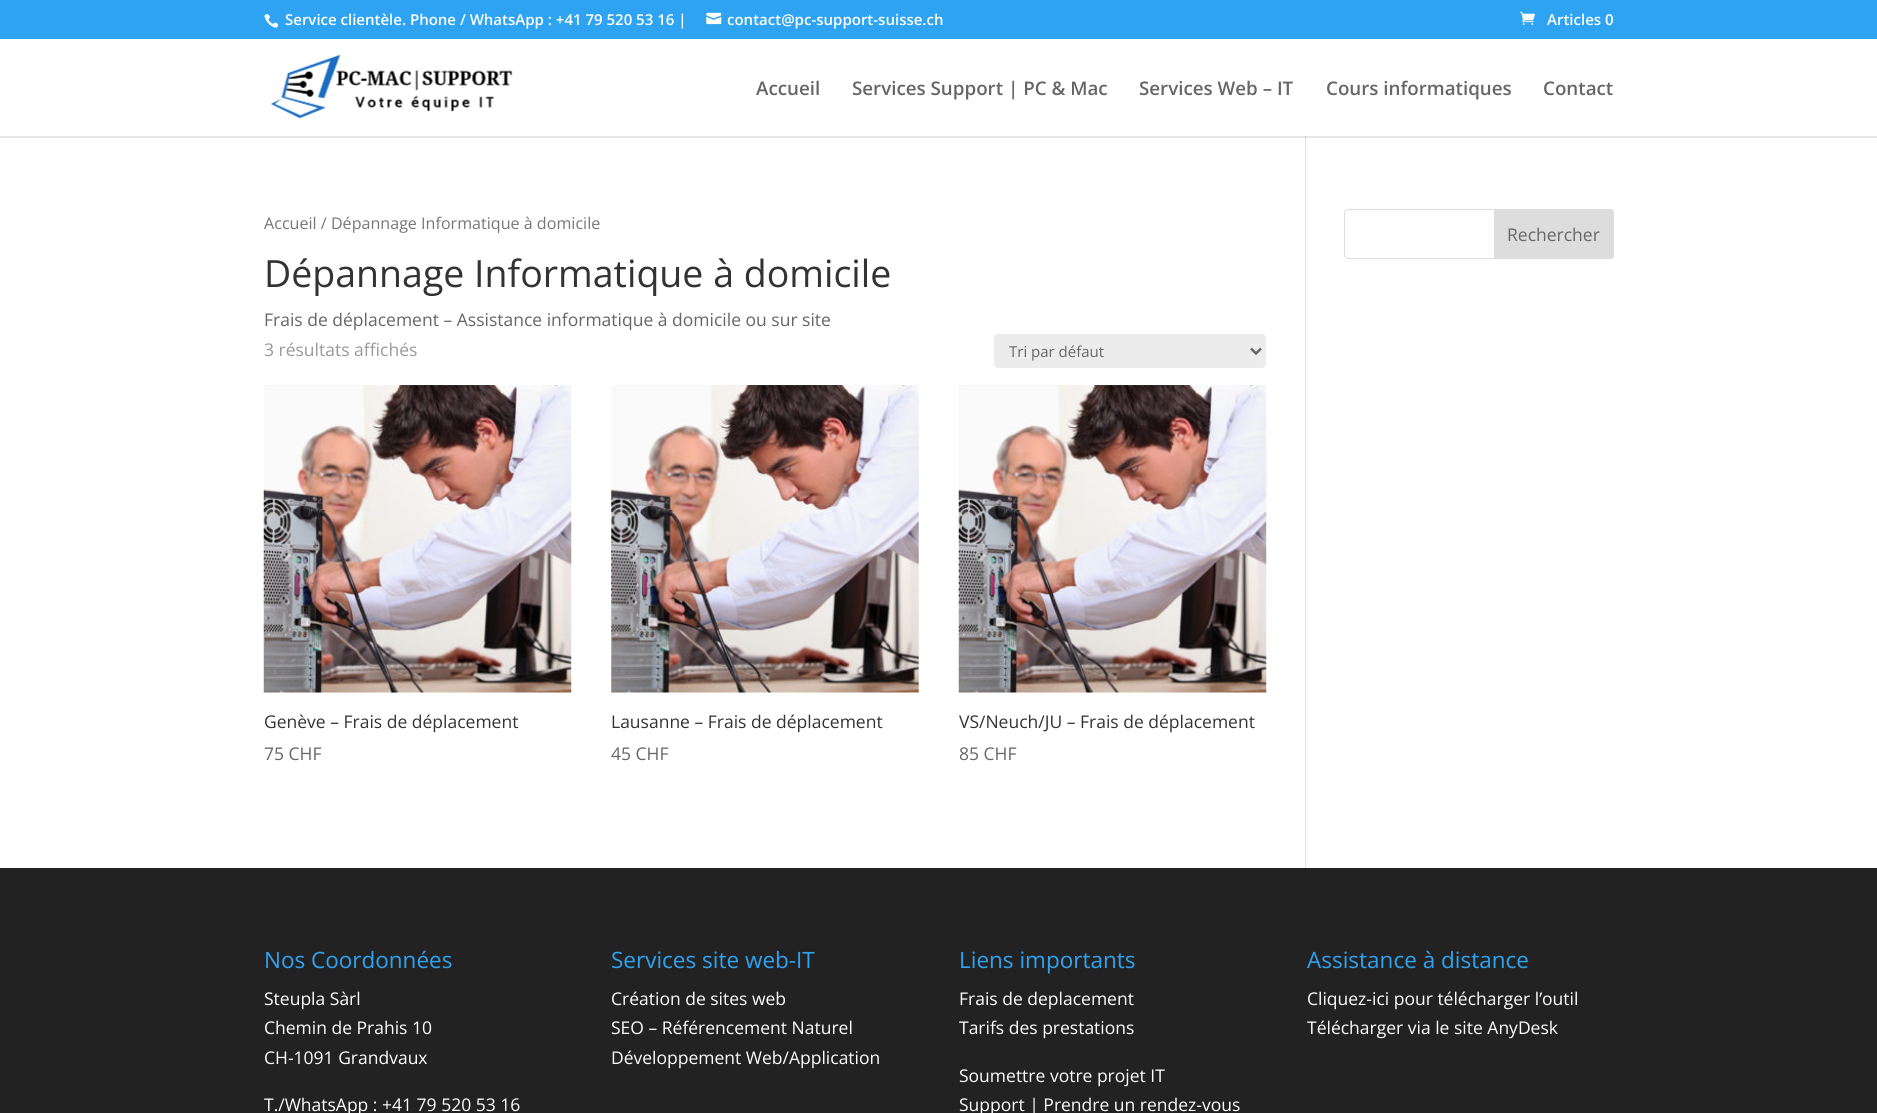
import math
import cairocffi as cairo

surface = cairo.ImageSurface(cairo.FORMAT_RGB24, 1877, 1113)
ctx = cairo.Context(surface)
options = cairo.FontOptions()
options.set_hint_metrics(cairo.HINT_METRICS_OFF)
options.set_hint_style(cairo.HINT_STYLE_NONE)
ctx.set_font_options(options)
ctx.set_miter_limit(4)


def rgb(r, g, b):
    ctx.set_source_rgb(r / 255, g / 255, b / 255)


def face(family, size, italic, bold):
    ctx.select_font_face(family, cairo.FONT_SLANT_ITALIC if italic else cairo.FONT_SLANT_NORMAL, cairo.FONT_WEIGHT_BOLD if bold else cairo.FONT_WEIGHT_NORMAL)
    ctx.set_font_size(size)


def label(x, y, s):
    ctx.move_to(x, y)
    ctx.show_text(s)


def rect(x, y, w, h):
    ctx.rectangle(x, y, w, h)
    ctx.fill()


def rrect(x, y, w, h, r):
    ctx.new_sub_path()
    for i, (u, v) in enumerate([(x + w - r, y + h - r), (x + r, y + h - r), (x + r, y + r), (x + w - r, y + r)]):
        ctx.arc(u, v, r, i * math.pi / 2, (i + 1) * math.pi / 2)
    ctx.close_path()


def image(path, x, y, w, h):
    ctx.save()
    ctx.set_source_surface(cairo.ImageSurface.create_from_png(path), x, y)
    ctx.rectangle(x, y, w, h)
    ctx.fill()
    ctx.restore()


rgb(255, 255, 255)
ctx.paint()
rgb(46, 163, 242)
rect(0, 0, 1877, 39)
image('image0.png', 264, 14, 15, 14)
face('Open Sans SemiBold', 15, 0, 0)
rgb(255, 255, 255)
label(285, 25, 'Service clientèle. Phone / WhatsApp : +41 79 520 53 16 |')
image('image1.png', 706, 12, 16, 13)
label(727, 25, 'contact@pc-support-suisse.ch')
image('image2.png', 1520, 11, 15, 14)
label(1547, 25, 'Articles 0')
rgb(226, 226, 226)
rect(1305, 136, 1, 732)
ctx.set_source_rgba(0, 0, 0, 0.1)
ctx.new_path()
ctx.move_to(0, 136)
ctx.line_to(0, 138)
ctx.line_to(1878, 138)
ctx.line_to(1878, 40)
ctx.line_to(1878, 136)
ctx.close_path()
ctx.fill()
image('image3.png', 270, 54, 243, 65)
face('Open Sans SemiBold', 18.75, 0, 0)
rgb(102, 102, 102)
label(756, 95, 'Accueil')
label(852, 95, 'Services Support | PC & Mac')
label(1139, 95, 'Services Web – IT')
label(1326, 95, 'Cours informatiques')
label(1543, 95, 'Contact')
face('Open Sans', 16.1, 0, 0)
rgb(118, 118, 118)
label(264, 229, 'Accueil / Dépannage Informatique à domicile')
face('Open Sans', 37.5, 0, 0)
rgb(51, 51, 51)
label(264, 287, 'Dépannage Informatique à domicile')
face('Open Sans', 17.5, 0, 0)
rgb(102, 102, 102)
label(264, 326, 'Frais de déplacement – Assistance informatique à domicile ou sur site')
rgb(153, 153, 153)
label(264, 356, '3 résultats affichés')
rgb(236, 236, 236)
rrect(994, 334, 272, 34, 4)
ctx.fill()
ctx.new_path()
ctx.move_to(1251, 348.5)
ctx.line_to(1256, 353.5)
ctx.line_to(1261, 348.5)
rgb(102, 102, 102)
ctx.set_line_width(2.5)
ctx.stroke()
face('Open Sans', 15, 0, 0)
label(1009, 357, 'Tri par défaut')
image('image4.png', 263, 385, 309, 308)
face('Open Sans', 17.5, 0, 0)
rgb(51, 51, 51)
label(264, 728, 'Genève – Frais de déplacement')
rgb(102, 102, 102)
label(264, 760, '75 CHF')
image('image5.png', 611, 385, 308, 308)
rgb(51, 51, 51)
label(611, 728, 'Lausanne – Frais de déplacement')
rgb(102, 102, 102)
label(611, 760, '45 CHF')
image('image6.png', 958, 385, 309, 308)
rgb(51, 51, 51)
label(959, 728, 'VS/Neuch/JU – Frais de déplacement')
rgb(102, 102, 102)
label(959, 760, '85 CHF')
rrect(1344.5, 209.5, 269, 49, 3.5)
rgb(221, 221, 221)
ctx.set_line_width(1)
ctx.stroke()
ctx.new_path()
ctx.move_to(1494.5, 209.5)
ctx.line_to(1610, 209.5)
ctx.curve_to(1612, 209.5, 1613.5, 211, 1613.5, 213)
ctx.line_to(1613.5, 255)
ctx.curve_to(1613.5, 257, 1612, 258.5, 1610, 258.5)
ctx.line_to(1494.5, 258.5)
ctx.close_path()
ctx.fill_preserve()
ctx.stroke()
rgb(102, 102, 102)
label(1507, 241, 'Rechercher')
rgb(34, 34, 34)
rect(0, 868, 1877, 245)
face('Open Sans', 22.5, 0, 0)
rgb(46, 163, 242)
label(264, 968, 'Nos Coordonnées')
face('Open Sans', 17.5, 0, 0)
rgb(255, 255, 255)
label(264, 1005, 'Steupla Sàrl')
label(264, 1034, 'Chemin de Prahis 10')
label(264, 1064, 'CH-1091 Grandvaux')
label(264, 1111, 'T./WhatsApp : +41 79 520 53 16')
face('Open Sans', 22.5, 0, 0)
rgb(46, 163, 242)
label(611, 968, 'Services site web-IT')
face('Open Sans', 17.5, 0, 0)
rgb(255, 255, 255)
label(611, 1005, 'Création de sites web')
label(611, 1034, 'SEO – Référencement Naturel')
label(611, 1064, 'Développement Web/Application')
face('Open Sans', 22.5, 0, 0)
rgb(46, 163, 242)
label(959, 968, 'Liens importants')
face('Open Sans', 17.5, 0, 0)
rgb(255, 255, 255)
label(959, 1005, 'Frais de deplacement')
label(959, 1034, 'Tarifs des prestations')
label(959, 1082, 'Soumettre votre projet IT')
label(959, 1111, 'Support | Prendre un rendez-vous')
face('Open Sans', 22.5, 0, 0)
rgb(46, 163, 242)
label(1307, 968, 'Assistance à distance')
face('Open Sans', 17.5, 0, 0)
rgb(255, 255, 255)
label(1307, 1005, 'Cliquez-ici pour télécharger l’outil')
label(1307, 1034, 'Télécharger via le site AnyDesk')
surface.write_to_png('render.png')
